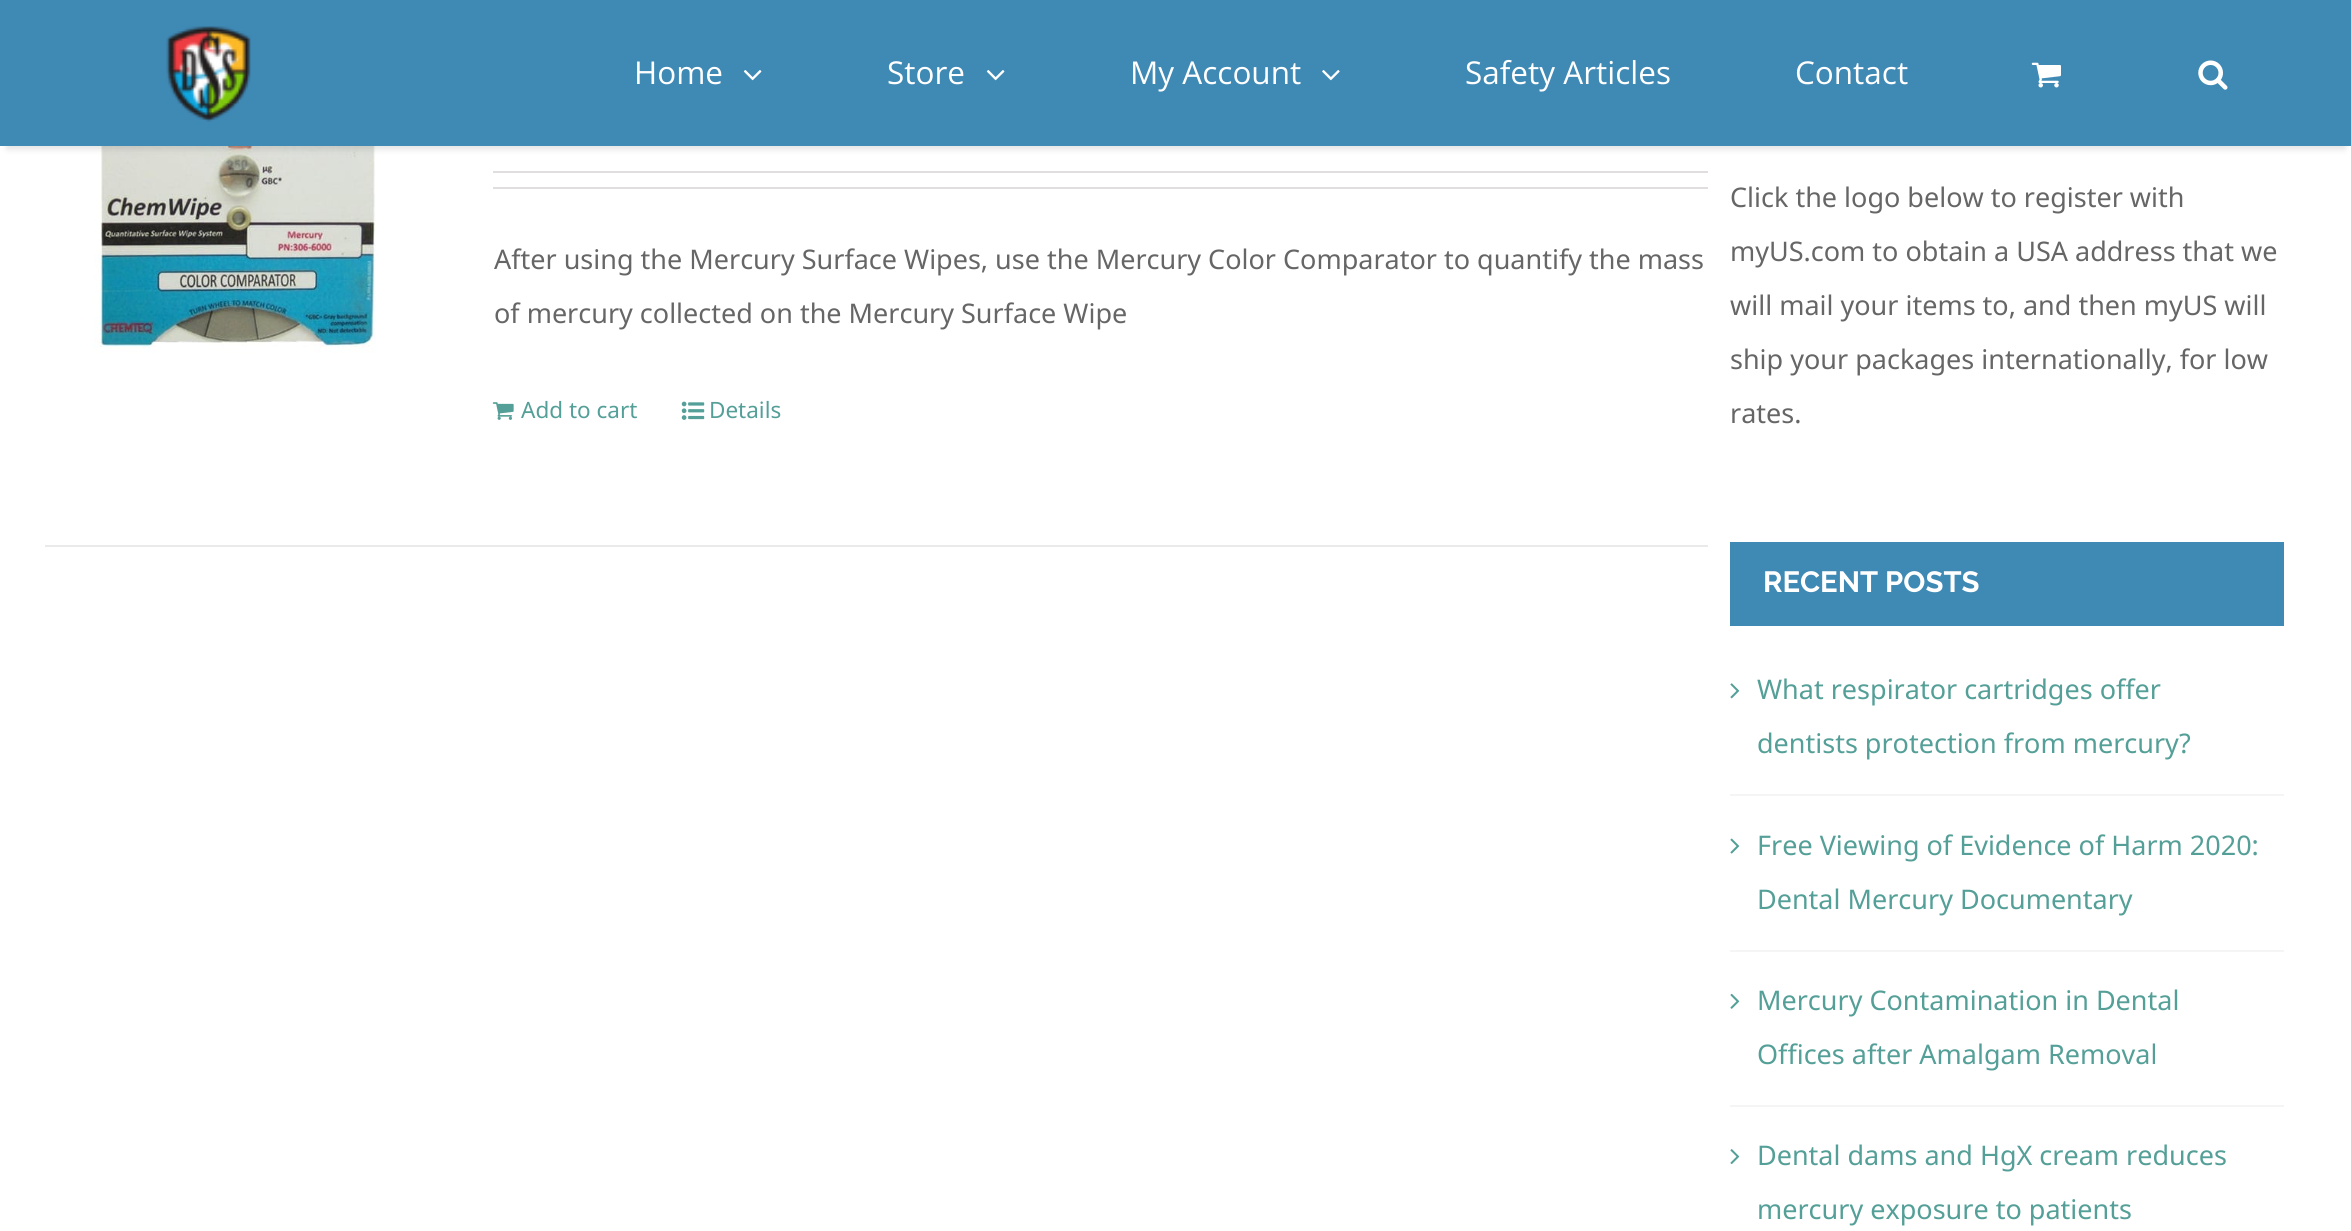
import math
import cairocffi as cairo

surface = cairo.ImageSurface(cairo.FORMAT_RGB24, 2351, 1231)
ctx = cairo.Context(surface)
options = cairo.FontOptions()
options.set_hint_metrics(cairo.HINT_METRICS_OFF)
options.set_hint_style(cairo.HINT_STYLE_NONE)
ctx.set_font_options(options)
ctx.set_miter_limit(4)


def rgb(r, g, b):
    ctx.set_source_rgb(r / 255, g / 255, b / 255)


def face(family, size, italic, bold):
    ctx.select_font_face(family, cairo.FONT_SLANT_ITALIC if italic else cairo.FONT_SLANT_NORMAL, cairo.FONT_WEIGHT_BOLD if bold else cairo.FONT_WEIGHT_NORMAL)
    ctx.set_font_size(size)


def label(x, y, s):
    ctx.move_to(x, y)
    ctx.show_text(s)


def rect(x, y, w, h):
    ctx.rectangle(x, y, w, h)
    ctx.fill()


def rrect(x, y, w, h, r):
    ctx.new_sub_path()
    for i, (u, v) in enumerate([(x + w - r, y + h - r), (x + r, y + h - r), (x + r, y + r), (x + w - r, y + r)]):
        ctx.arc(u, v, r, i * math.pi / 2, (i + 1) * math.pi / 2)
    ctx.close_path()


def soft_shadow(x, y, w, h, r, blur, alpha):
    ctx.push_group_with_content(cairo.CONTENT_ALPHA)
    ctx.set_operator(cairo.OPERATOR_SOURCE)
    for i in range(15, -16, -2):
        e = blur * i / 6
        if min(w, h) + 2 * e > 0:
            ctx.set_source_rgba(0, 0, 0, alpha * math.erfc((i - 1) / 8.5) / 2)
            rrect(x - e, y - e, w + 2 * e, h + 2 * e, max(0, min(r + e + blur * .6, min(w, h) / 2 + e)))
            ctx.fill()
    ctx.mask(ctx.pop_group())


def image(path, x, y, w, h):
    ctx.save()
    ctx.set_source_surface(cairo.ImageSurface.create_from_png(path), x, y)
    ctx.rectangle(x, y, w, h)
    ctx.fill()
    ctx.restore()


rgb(255, 255, 255)
ctx.paint()
image('image5.png', 94, 146, 282, 207)
rgb(0, 0, 0)
soft_shadow(7, 16, 2338, 133, 0, 3.5, 0.12)
rgb(63, 137, 181)
rect(0, 0, 2351, 146)
image('image0.png', 166, 26, 85, 96)
face('Open Sans', 31.5, 0, 0)
rgb(255, 255, 255)
label(634, 84, 'Home')
image('image1.png', 743, 70, 19, 11)
label(887, 84, 'Store')
image('image1.png', 986, 70, 19, 11)
label(1130, 84, 'My Account')
image('image2.png', 1322, 70, 18, 11)
label(1465, 84, 'Safety Articles')
label(1795, 84, 'Contact')
image('image3.png', 2031, 62, 30, 26)
image('image4.png', 2198, 60, 30, 30)
rgb(235, 234, 234)
rect(45, 545, 1663, 2)
rgb(224, 222, 222)
rect(493, 171, 1215, 2)
rect(493, 187, 1215, 2)
face('Noto Sans', 27, 0, 0)
rgb(102, 102, 102)
label(494, 269, 'After using the Mercury Surface Wipes, use the Mercury Color Comparator to quantify the mass')
label(494, 323, 'of mercury collected on the Mercury Surface Wipe')
image('image6.png', 492, 402, 22, 18)
face('Noto Sans', 22.5, 0, 0)
rgb(84, 159, 151)
label(521, 418, 'Add to cart')
image('image7.png', 681, 401, 24, 19)
label(709, 418, 'Details')
face('Noto Sans', 27, 0, 0)
rgb(102, 102, 102)
label(1730, 207, 'Click the logo below to register with')
label(1730, 261, 'myUS.com to obtain a USA address that we')
label(1730, 315, 'will mail your items to, and then myUS will')
label(1730, 369, 'ship your packages internationally, for low')
label(1730, 423, 'rates.')
rgb(63, 137, 181)
rect(1730, 542, 554, 84)
face('Raleway Thin', 29.25, 0, 0)
rgb(255, 255, 255)
label(1763, 592, 'RECENT POSTS')
rgb(245, 245, 245)
rect(1730, 794, 554, 2)
image('image8.png', 1730, 683, 10, 16)
face('Noto Sans', 27, 0, 0)
rgb(84, 159, 151)
label(1757, 699, 'What respirator cartridges offer')
label(1757, 753, 'dentists protection from mercury?')
rgb(245, 245, 245)
rect(1730, 950, 554, 2)
image('image9.png', 1730, 838, 10, 16)
rgb(84, 159, 151)
label(1757, 855, 'Free Viewing of Evidence of Harm 2020:')
label(1757, 909, 'Dental Mercury Documentary')
rgb(245, 245, 245)
rect(1730, 1105, 554, 2)
image('image10.png', 1730, 993, 10, 16)
rgb(84, 159, 151)
label(1757, 1010, 'Mercury Contamination in Dental')
label(1757, 1064, 'Offices after Amalgam Removal')
image('image11.png', 1730, 1149, 10, 15)
label(1757, 1165, 'Dental dams and HgX cream reduces')
label(1757, 1219, 'mercury exposure to patients')
surface.write_to_png('render.png')
